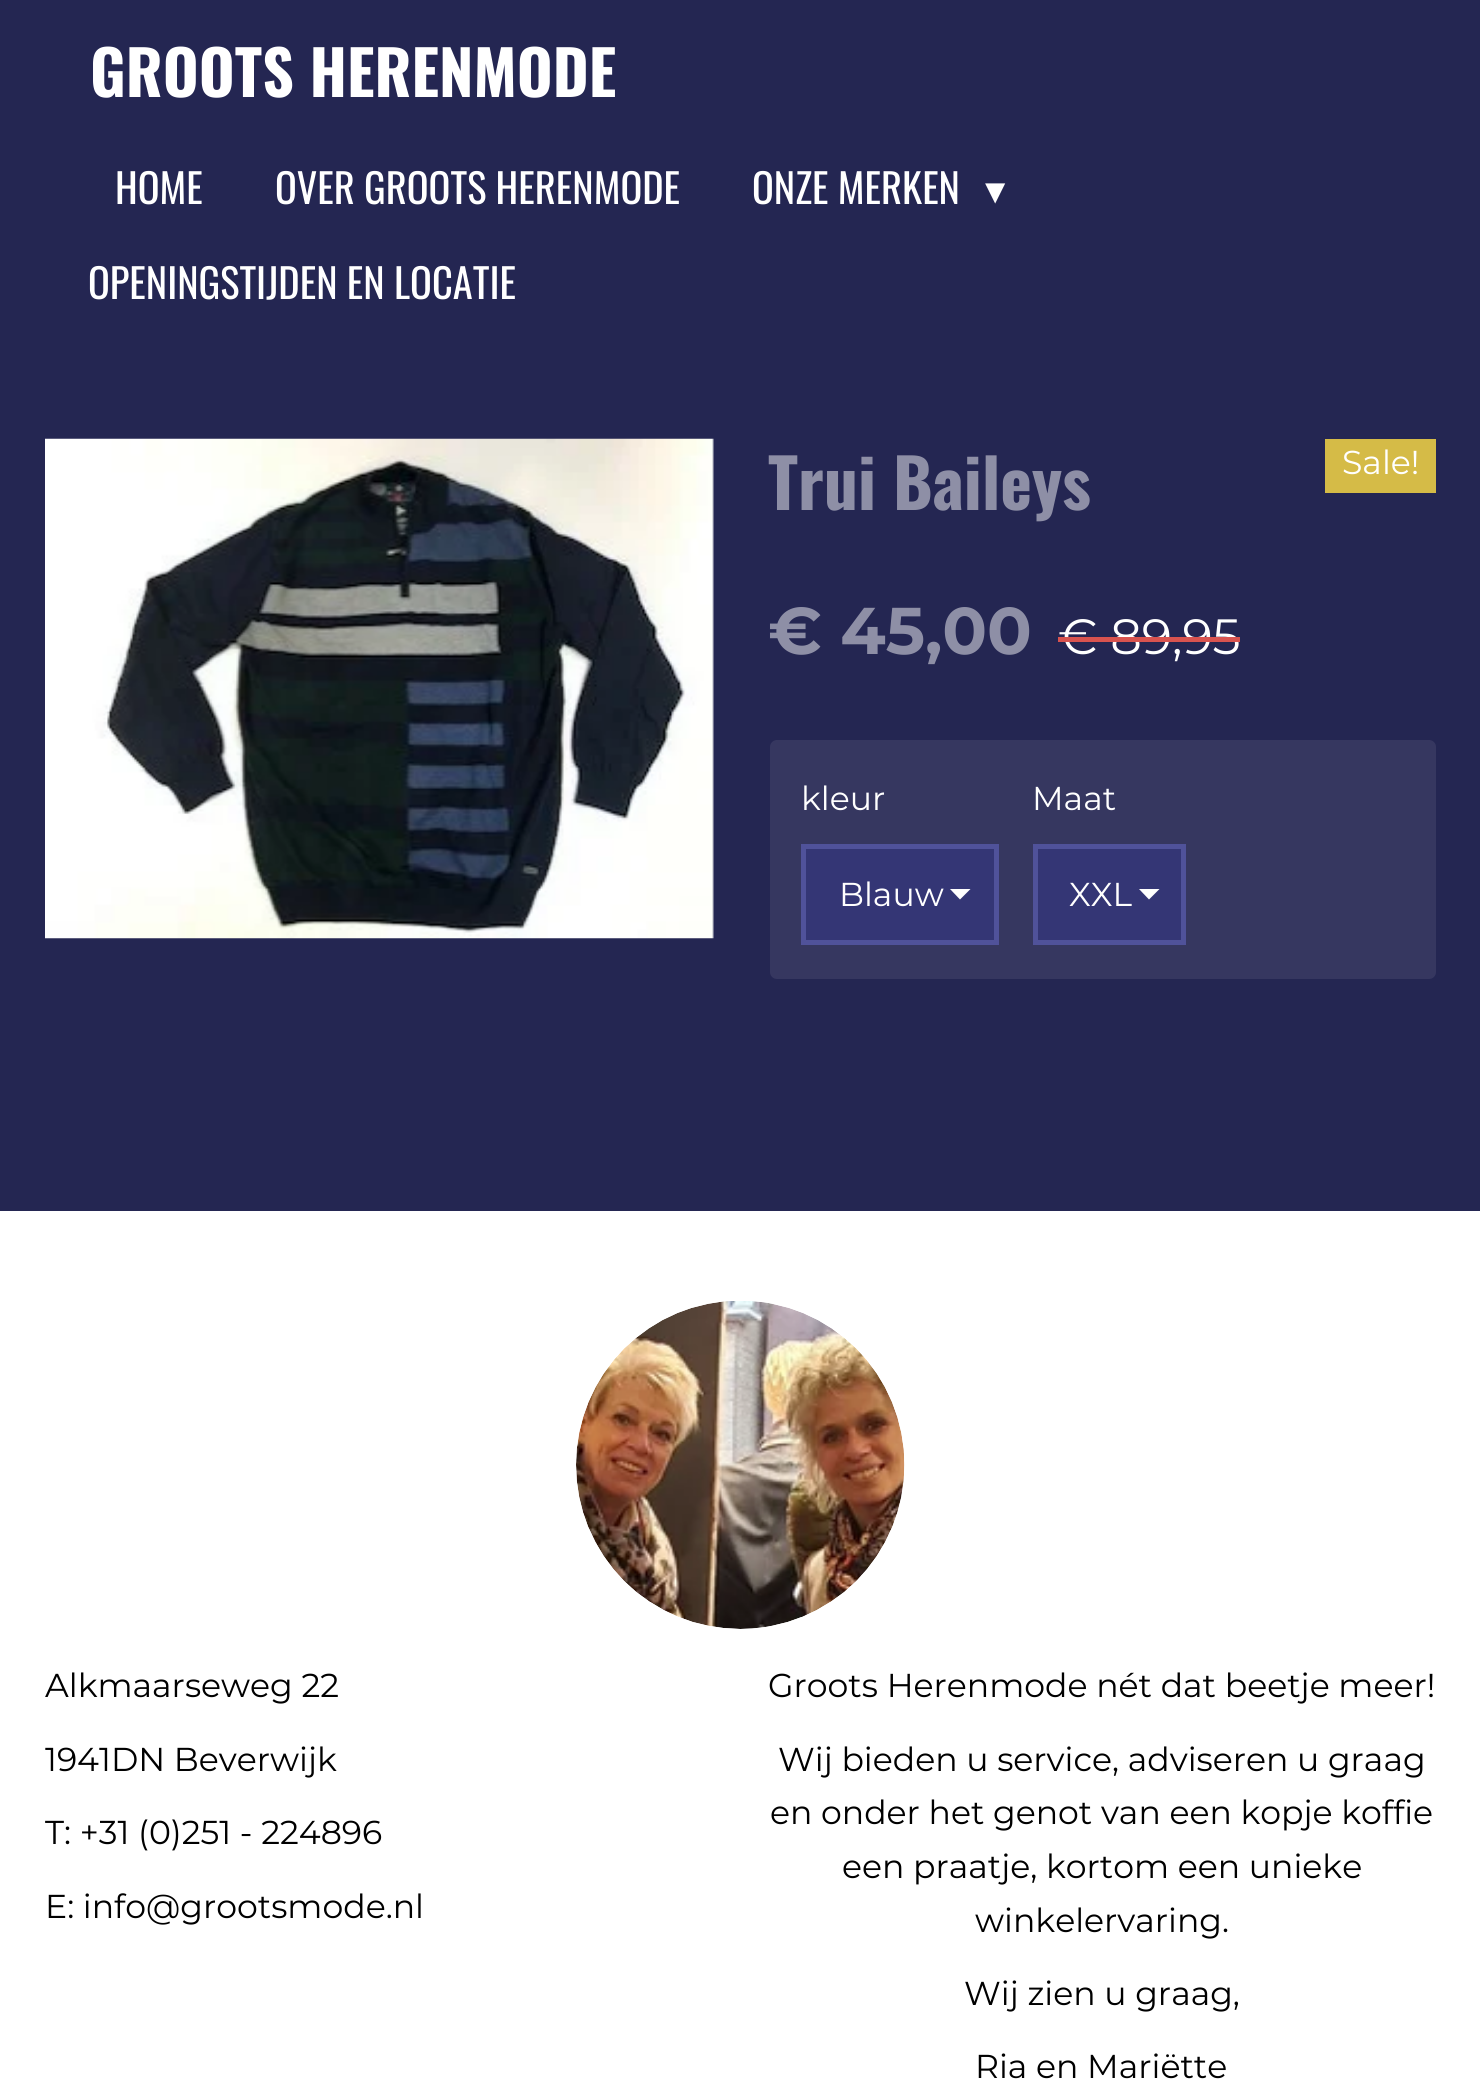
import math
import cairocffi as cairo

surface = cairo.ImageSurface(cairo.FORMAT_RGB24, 1480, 2091)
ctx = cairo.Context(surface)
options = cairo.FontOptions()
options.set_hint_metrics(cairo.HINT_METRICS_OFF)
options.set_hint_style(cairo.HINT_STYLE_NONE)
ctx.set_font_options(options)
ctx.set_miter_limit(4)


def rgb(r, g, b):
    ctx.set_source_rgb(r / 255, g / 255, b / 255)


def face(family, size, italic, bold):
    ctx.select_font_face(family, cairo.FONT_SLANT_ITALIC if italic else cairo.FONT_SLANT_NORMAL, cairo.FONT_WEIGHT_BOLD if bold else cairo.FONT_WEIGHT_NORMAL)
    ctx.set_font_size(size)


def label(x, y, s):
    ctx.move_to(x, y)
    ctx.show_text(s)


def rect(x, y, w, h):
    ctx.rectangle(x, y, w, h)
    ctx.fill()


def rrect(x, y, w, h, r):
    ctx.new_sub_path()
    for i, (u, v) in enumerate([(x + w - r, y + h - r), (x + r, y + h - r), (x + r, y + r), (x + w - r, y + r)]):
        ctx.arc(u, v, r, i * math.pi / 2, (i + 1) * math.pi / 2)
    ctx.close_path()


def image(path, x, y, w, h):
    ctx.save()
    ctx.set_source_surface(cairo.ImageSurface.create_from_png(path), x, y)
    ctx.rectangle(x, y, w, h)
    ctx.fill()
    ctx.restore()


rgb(36, 38, 82)
ctx.paint()
face('Oswald', 61.5, 0, 1)
rgb(255, 255, 255)
label(90, 97, 'GROOTS HERENMODE')
face('Oswald', 40.5, 0, 0)
label(115, 204, 'HOME')
label(275, 204, 'OVER GROOTS HERENMODE')
label(752, 204, 'ONZE MERKEN')
face('DejaVu Sans', 40.5, 0, 0)
label(985, 204, '▾')
face('Oswald', 40.5, 0, 0)
label(88, 299, 'OPENINGSTIJDEN EN LOCATIE')
image('image0.png', 45, 438, 669, 501)
face('Oswald', 67.5, 0, 1)
rgb(142, 143, 166)
label(768, 510, 'Trui Baileys')
rgb(213, 187, 71)
rect(1325, 439, 111, 54)
face('Montserrat', 33.1, 0, 0)
rgb(255, 255, 255)
label(1342, 474, 'Sale!')
face('Montserrat', 66, 0, 1)
rgb(142, 143, 166)
label(768, 654, '€ 45,00')
face('Montserrat', 49.5, 0, 0)
rgb(255, 255, 255)
label(1058, 654, '€ 89,95')
rgb(217, 83, 79)
rect(1058, 637, 182, 5)
rgb(54, 55, 96)
rrect(770, 740, 666, 239, 7)
ctx.fill()
face('Montserrat', 33.1, 0, 0)
rgb(255, 255, 255)
label(801, 810, 'kleur')
rgb(52, 54, 117)
rect(806, 849, 188, 91)
rgb(255, 255, 255)
ctx.new_path()
ctx.move_to(960, 899.5)
ctx.line_to(950, 889)
ctx.line_to(970.5, 889)
ctx.close_path()
ctx.fill()
ctx.rectangle(803.5, 846.5, 193, 96)
rgb(80, 82, 154)
ctx.set_line_width(5)
ctx.stroke()
rgb(255, 255, 255)
label(839, 906, 'Blauw')
label(1032, 810, 'Maat')
rgb(52, 54, 117)
rect(1038, 849, 143, 91)
rgb(255, 255, 255)
ctx.new_path()
ctx.move_to(1149, 899.5)
ctx.line_to(1139, 889)
ctx.line_to(1159.5, 889)
ctx.close_path()
ctx.fill()
ctx.rectangle(1035.5, 846.5, 148, 96)
rgb(80, 82, 154)
ctx.stroke()
rgb(255, 255, 255)
label(1069, 906, 'XXL')
rect(0, 1211, 1480, 880)
image('image1.png', 576, 1301, 329, 328)
rgb(0, 0, 0)
label(45, 1697, 'Alkmaarseweg 22')
label(45, 1771, '1941DN Beverwijk')
label(45, 1844, 'T: +31 (0)251 - 224896')
label(45, 1918, 'E: info@grootsmode.nl')
label(768, 1697, 'Groots Herenmode nét dat beetje meer!')
label(778, 1771, 'Wij bieden u service, adviseren u graag')
label(770, 1824, 'en onder het genot van een kopje koffie')
label(842, 1878, 'een praatje, kortom een unieke')
label(975, 1932, 'winkelervaring.')
label(964, 2005, 'Wij zien u graag,')
label(975, 2078, 'Ria en Mariëtte')
surface.write_to_png('render.png')
